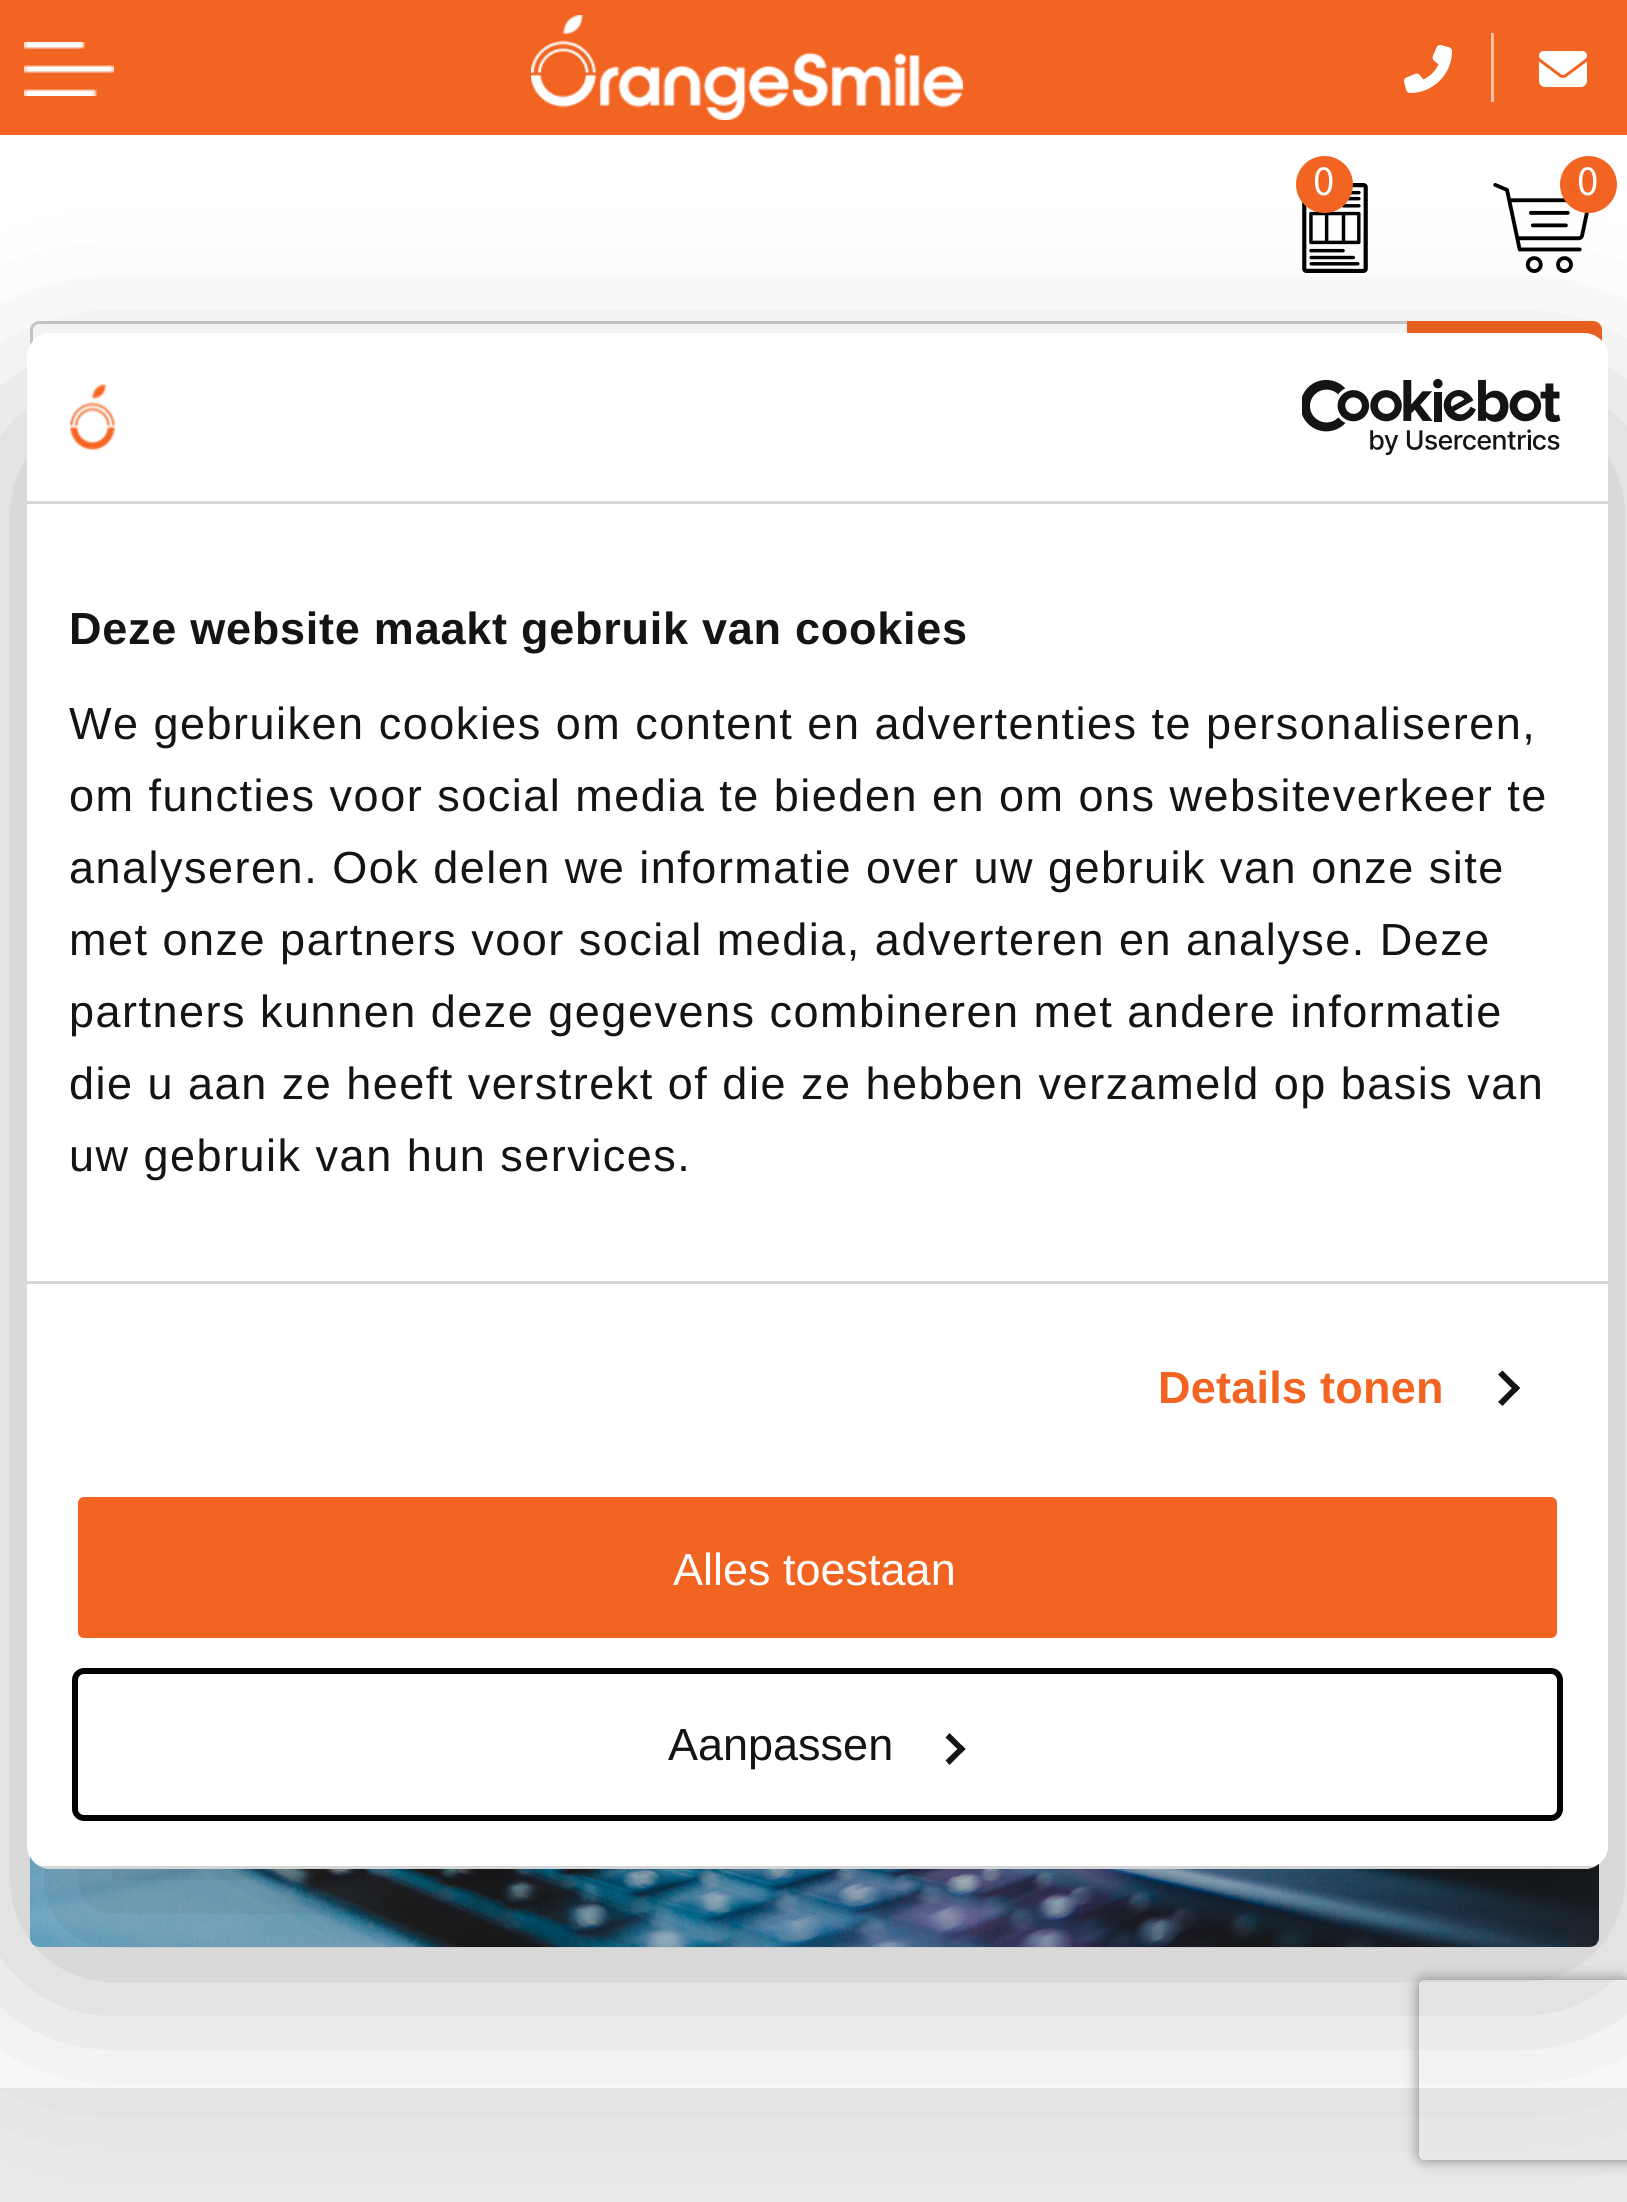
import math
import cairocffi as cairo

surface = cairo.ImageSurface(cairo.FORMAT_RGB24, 1627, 2202)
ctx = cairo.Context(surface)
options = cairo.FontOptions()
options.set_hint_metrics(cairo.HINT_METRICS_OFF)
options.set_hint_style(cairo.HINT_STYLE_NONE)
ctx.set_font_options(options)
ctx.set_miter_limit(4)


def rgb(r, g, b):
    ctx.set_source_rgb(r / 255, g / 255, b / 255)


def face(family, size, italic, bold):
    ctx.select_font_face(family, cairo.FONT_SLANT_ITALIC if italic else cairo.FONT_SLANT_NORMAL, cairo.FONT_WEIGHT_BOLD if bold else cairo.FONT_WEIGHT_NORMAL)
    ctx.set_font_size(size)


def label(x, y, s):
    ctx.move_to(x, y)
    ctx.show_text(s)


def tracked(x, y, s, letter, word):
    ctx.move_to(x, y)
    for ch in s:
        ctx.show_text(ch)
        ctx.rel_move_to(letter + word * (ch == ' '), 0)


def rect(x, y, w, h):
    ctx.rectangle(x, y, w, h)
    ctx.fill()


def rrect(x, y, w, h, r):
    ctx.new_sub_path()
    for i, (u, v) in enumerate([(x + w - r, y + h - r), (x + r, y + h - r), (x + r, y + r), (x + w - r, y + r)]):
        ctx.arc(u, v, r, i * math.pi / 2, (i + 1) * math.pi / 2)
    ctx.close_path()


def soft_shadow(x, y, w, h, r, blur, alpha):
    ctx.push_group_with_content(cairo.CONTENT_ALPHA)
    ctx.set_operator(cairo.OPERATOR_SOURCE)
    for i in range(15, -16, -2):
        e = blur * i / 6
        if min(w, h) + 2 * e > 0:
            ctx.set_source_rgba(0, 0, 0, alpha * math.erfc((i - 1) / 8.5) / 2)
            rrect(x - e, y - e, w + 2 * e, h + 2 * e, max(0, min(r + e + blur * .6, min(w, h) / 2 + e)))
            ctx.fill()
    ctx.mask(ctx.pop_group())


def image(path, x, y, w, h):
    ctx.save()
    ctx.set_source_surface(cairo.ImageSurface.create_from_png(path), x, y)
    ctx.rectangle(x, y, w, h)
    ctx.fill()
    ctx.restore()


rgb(255, 255, 255)
ctx.paint()
rgb(242, 100, 34)
rect(0, 0, 1627, 135)
image('image0.png', 24, 42, 90, 54)
image('image1.png', 531, 15, 432, 105)
image('image2.png', 1404, 45, 48, 48)
rgb(250, 193, 167)
rect(1491, 33, 3, 69)
image('image3.png', 1539, 51, 48, 36)
image('image4.png', 1302, 183, 66, 90)
rgb(242, 100, 34)
ctx.arc(1324.5, 184.5, 28.5, 0, 2 * math.pi)
ctx.fill()
face('Source Sans 3', 43, 0, 0)
rgb(255, 255, 255)
label(1313, 195, '0')
image('image5.png', 1493, 183, 96, 90)
rgb(242, 100, 34)
ctx.arc(1588.5, 184.5, 28.5, 0, 2 * math.pi)
ctx.fill()
rgb(255, 255, 255)
label(1577, 195, '0')
ctx.new_path()
ctx.move_to(39, 322.5)
ctx.line_to(1408.5, 322.5)
ctx.line_to(1408.5, 454.5)
ctx.line_to(39, 454.5)
ctx.curve_to(35, 454.5, 31.5, 451, 31.5, 447)
ctx.line_to(31.5, 330)
ctx.curve_to(31.5, 326, 35, 322.5, 39, 322.5)
ctx.close_path()
rgb(204, 204, 204)
ctx.set_line_width(3)
ctx.stroke()
rgb(242, 100, 34)
ctx.new_path()
ctx.move_to(1407, 321)
ctx.line_to(1593, 321)
ctx.curve_to(1598, 321, 1602, 325, 1602, 330)
ctx.line_to(1602, 447)
ctx.curve_to(1602, 452, 1598, 456, 1593, 456)
ctx.line_to(1407, 456)
ctx.close_path()
ctx.fill()
image('image6.png', 30, 1856, 1569, 91)
rgb(234, 234, 234)
rect(0, 2088, 1627, 114)
ctx.save()
ctx.set_fill_rule(cairo.FILL_RULE_EVEN_ODD)
ctx.new_path()
ctx.move_to(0, 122)
ctx.line_to(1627, 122)
ctx.line_to(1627, 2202)
ctx.line_to(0, 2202)
ctx.close_path()
ctx.move_to(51, 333)
ctx.line_to(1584, 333)
ctx.curve_to(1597.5, 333, 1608, 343.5, 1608, 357)
ctx.line_to(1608, 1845)
ctx.curve_to(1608, 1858.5, 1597.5, 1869, 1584, 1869)
ctx.line_to(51, 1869)
ctx.curve_to(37.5, 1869, 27, 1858.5, 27, 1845)
ctx.line_to(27, 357)
ctx.curve_to(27, 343.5, 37.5, 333, 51, 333)
ctx.close_path()
ctx.clip()
rgb(0, 0, 0)
soft_shadow(27, 429, 1581, 1536, 24, 102, 0.3)
ctx.restore()
rgb(255, 255, 255)
rrect(27, 333, 1581, 1536, 24)
ctx.fill()
rgb(214, 214, 214)
rect(27, 501, 1581, 3)
image('image7.png', 70, 384, 46, 67)
image('image8.png', 1302, 378, 259, 77)
rect(27, 1281, 1581, 3)
face('Liberation Sans', 45, 0, 1)
rgb(20, 20, 20)
tracked(69, 644, 'Deze website maakt gebruik van cookies', 0.75, 0)
face('Liberation Sans', 45, 0, 0)
tracked(69, 739, 'We gebruiken cookies om content en advertenties te personaliseren,', 1.5, 0)
tracked(69, 811, 'om functies voor social media te bieden en om ons websiteverkeer te', 1.5, 0)
tracked(69, 883, 'analyseren. Ook delen we informatie over uw gebruik van onze site', 1.5, 0)
tracked(69, 955, 'met onze partners voor social media, adverteren en analyse. Deze', 1.5, 0)
tracked(69, 1027, 'partners kunnen deze gegevens combineren met andere informatie', 1.5, 0)
tracked(69, 1099, 'die u aan ze heeft verstrekt of die ze hebben verzameld op basis van', 1.5, 0)
tracked(69, 1171, 'uw gebruik van hun services.', 1.5, 0)
face('Liberation Sans', 45, 0, 1)
rgb(242, 100, 34)
tracked(1158, 1403, 'Details tonen', 0.25, 0)
rgb(20, 20, 20)
ctx.new_path()
ctx.move_to(1502.5, 1370.5)
ctx.line_to(1520, 1388)
ctx.line_to(1516, 1392.5)
ctx.line_to(1498, 1374.5)
ctx.close_path()
ctx.fill()
ctx.new_path()
ctx.move_to(1516, 1384)
ctx.line_to(1520, 1388)
ctx.line_to(1502.5, 1406)
ctx.line_to(1498, 1402)
ctx.close_path()
ctx.fill()
ctx.save()
rrect(27, 333, 1581, 1536, 24)
ctx.clip()
rgb(214, 214, 214)
rect(39, 1866, 1557, 3)
ctx.restore()
rgb(242, 100, 34)
rrect(75, 1494, 1485, 147, 9)
ctx.fill_preserve()
rgb(255, 255, 255)
ctx.set_line_width(6)
ctx.stroke()
face('Liberation Sans', 45, 0, 0)
label(673, 1585, 'Alles toestaan')
rrect(75, 1671, 1485, 147, 9)
rgb(0, 0, 0)
ctx.stroke()
rgb(20, 20, 20)
label(668, 1760, 'Aanpassen')
ctx.new_path()
ctx.move_to(949.5, 1733)
ctx.line_to(965.5, 1749)
ctx.line_to(961.5, 1753)
ctx.line_to(945.5, 1737.5)
ctx.close_path()
ctx.fill()
ctx.new_path()
ctx.move_to(961.5, 1745)
ctx.line_to(965.5, 1749)
ctx.line_to(949.5, 1765)
ctx.line_to(945.5, 1760.5)
ctx.close_path()
ctx.fill()
ctx.save()
ctx.set_fill_rule(cairo.FILL_RULE_EVEN_ODD)
ctx.new_path()
ctx.move_to(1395, 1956)
ctx.line_to(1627, 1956)
ctx.line_to(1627, 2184)
ctx.line_to(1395, 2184)
ctx.close_path()
ctx.move_to(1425, 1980)
ctx.line_to(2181, 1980)
ctx.curve_to(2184.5, 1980, 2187, 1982.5, 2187, 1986)
ctx.line_to(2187, 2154)
ctx.curve_to(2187, 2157.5, 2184.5, 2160, 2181, 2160)
ctx.line_to(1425, 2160)
ctx.curve_to(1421.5, 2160, 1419, 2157.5, 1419, 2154)
ctx.line_to(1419, 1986)
ctx.curve_to(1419, 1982.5, 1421.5, 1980, 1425, 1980)
ctx.close_path()
ctx.clip()
rgb(128, 128, 128)
soft_shadow(1419, 1980, 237, 180, 6, 7.5, 1)
ctx.restore()
surface.write_to_png('render.png')
